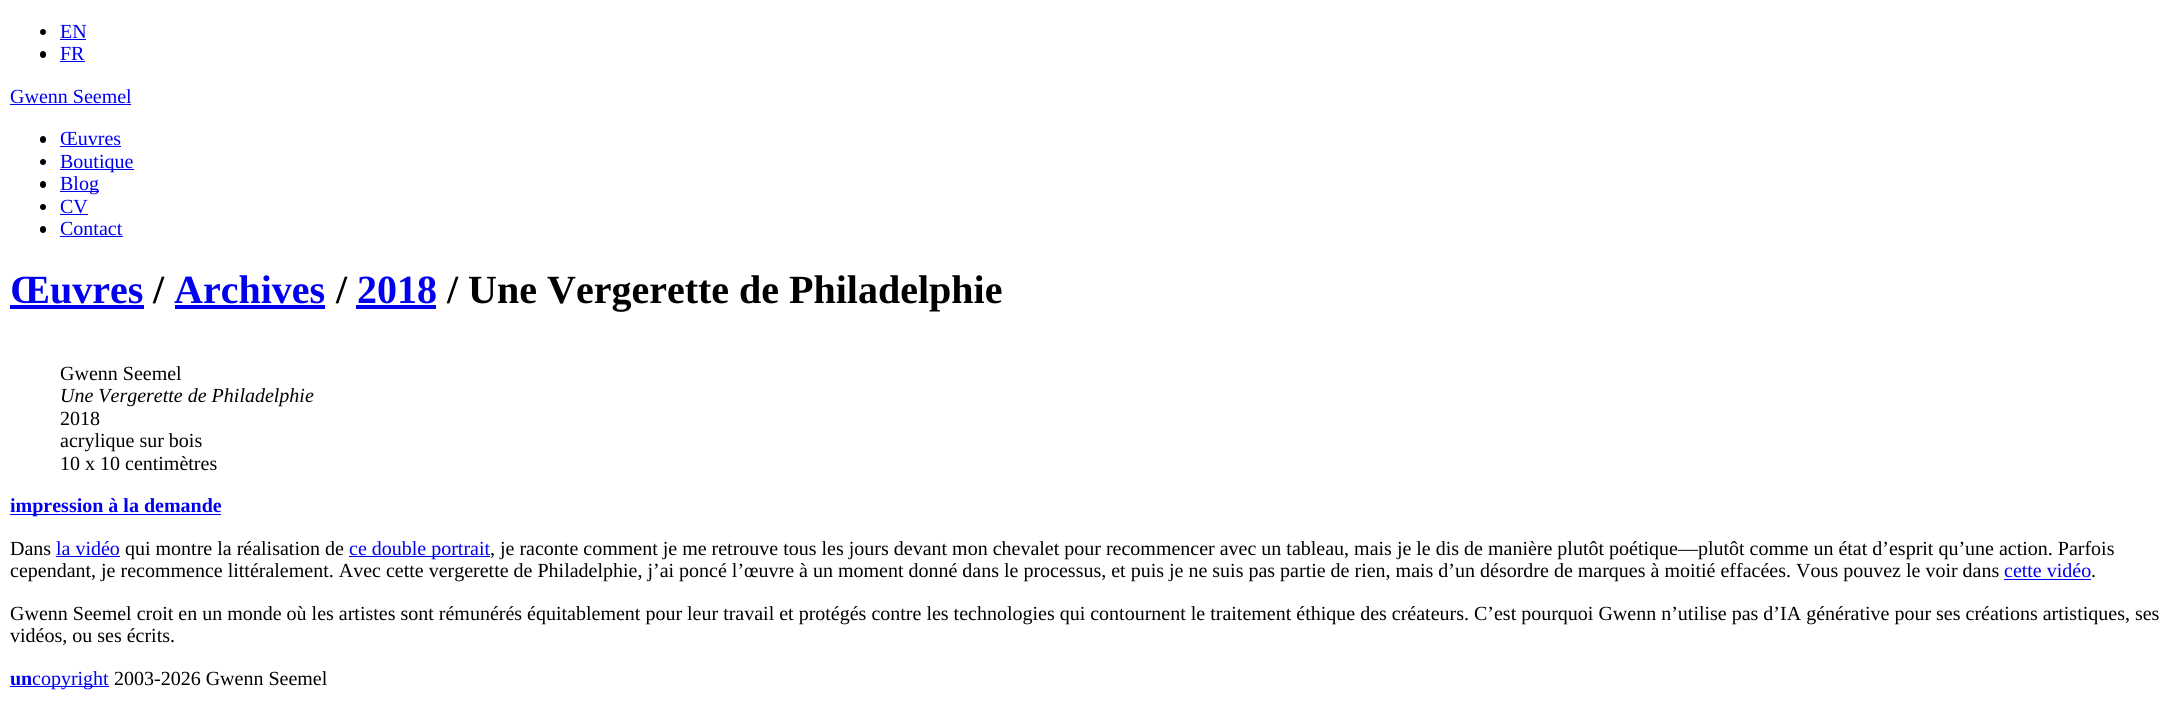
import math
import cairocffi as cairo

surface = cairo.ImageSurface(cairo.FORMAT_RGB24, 2181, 721)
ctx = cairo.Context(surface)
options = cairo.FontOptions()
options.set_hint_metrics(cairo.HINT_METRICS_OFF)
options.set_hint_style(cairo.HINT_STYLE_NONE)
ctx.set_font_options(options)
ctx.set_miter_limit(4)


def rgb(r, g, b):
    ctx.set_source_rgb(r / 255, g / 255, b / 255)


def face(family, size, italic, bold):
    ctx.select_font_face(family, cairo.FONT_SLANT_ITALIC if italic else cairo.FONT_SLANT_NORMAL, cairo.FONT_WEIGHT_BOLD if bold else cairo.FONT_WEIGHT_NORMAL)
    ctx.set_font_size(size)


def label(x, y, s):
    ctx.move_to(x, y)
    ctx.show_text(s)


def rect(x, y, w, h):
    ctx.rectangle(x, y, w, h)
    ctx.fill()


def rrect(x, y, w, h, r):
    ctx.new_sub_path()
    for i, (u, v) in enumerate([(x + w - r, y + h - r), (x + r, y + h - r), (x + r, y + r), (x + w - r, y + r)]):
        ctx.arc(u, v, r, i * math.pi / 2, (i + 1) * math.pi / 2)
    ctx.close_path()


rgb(255, 255, 255)
ctx.paint()
rgb(0, 0, 0)
ctx.arc(43, 32, 3, 0, 2 * math.pi)
ctx.fill()
face('Liberation Serif', 20, 0, 0)
rgb(0, 0, 238)
label(60, 38, 'EN')
rect(60, 39, 26, 1)
rgb(0, 0, 0)
rrect(40, 51, 6, 7, 3)
ctx.fill()
rgb(0, 0, 238)
label(60, 60, 'FR')
rect(60, 61, 25, 1)
label(10, 103, 'Gwenn Seemel')
rect(10, 104, 121, 1)
rgb(0, 0, 0)
rrect(40, 136, 6, 7, 3)
ctx.fill()
rgb(0, 0, 238)
label(60, 145, 'Œuvres')
rect(60, 146, 61, 1)
rgb(0, 0, 0)
ctx.new_path()
ctx.arc(43, 162, 3, 0, 2 * math.pi)
ctx.fill()
rgb(0, 0, 238)
rect(60, 169, 74, 1)
label(60, 168, 'Boutique')
rgb(0, 0, 0)
rrect(40, 181, 6, 7, 3)
ctx.fill()
rgb(0, 0, 238)
rect(60, 191, 39, 1)
label(60, 190, 'Blog')
rgb(0, 0, 0)
ctx.new_path()
ctx.arc(43, 207, 3, 0, 2 * math.pi)
ctx.fill()
rgb(0, 0, 238)
label(60, 213, 'CV')
rect(60, 214, 28, 1)
rgb(0, 0, 0)
rrect(40, 226, 6, 7, 3)
ctx.fill()
rgb(0, 0, 238)
label(60, 235, 'Contact')
rect(60, 236, 63, 1)
face('Liberation Serif', 40, 0, 1)
label(10, 303, 'Œuvres')
rect(10, 305, 134, 4)
rgb(0, 0, 0)
label(153, 303, '/')
rgb(0, 0, 238)
label(174, 303, 'Archives')
rect(175, 305, 150, 4)
rgb(0, 0, 0)
label(336, 303, '/')
rgb(0, 0, 238)
label(357, 303, '2018')
rect(356, 305, 80, 4)
rgb(0, 0, 0)
label(447, 303, '/ Une Vergerette de Philadelphie')
face('Liberation Serif', 20, 0, 0)
label(60, 380, 'Gwenn Seemel')
face('Liberation Serif', 20, 1, 0)
label(60, 402, 'Une Vergerette de Philadelphie')
face('Liberation Serif', 20, 0, 0)
label(60, 425, '2018')
label(60, 447, 'acrylique sur bois')
label(60, 470, '10 x 10 centimètres')
rgb(0, 0, 238)
rect(10, 514, 211, 1)
face('Liberation Serif', 20, 0, 1)
label(10, 512, 'impression à la demande')
face('Liberation Serif', 20, 0, 0)
rgb(0, 0, 0)
label(10, 555, 'Dans')
rgb(0, 0, 238)
label(56, 555, 'la vidéo')
rect(56, 556, 64, 1)
rgb(0, 0, 0)
label(125, 555, 'qui montre la réalisation de')
rgb(0, 0, 238)
rect(349, 556, 141, 1)
label(349, 555, 'ce double portrait')
rgb(0, 0, 0)
label(490, 555, ', je raconte comment je me retrouve tous les jours devant mon chevalet pour recommencer avec un tableau, mais je le dis de manière plutôt poétique—plutôt comme un état d’esprit qu’une action. Parfois')
label(10, 577, 'cependant, je recommence littéralement. Avec cette vergerette de Philadelphie, j’ai poncé l’œuvre à un moment donné dans le processus, et puis je ne suis pas partie de rien, mais d’un désordre de marques à moitié effacées. Vous pouvez le voir dans')
rgb(0, 0, 238)
label(2004, 577, 'cette vidéo')
rect(2004, 579, 87, 1)
rgb(0, 0, 0)
label(2091, 577, '.')
label(10, 620, 'Gwenn Seemel croit en un monde où les artistes sont rémunérés équitablement pour leur travail et protégés contre les technologies qui contournent le traitement éthique des créateurs. C’est pourquoi Gwenn n’utilise pas d’IA générative pour ses créations artistiques, ses')
label(10, 642, 'vidéos, ou ses écrits.')
face('Liberation Serif', 20, 0, 1)
rgb(0, 0, 238)
label(10, 685, 'un')
rect(10, 686, 99, 1)
face('Liberation Serif', 20, 0, 0)
label(32, 685, 'copyright')
rgb(0, 0, 0)
label(114, 685, '2003-2026 Gwenn Seemel')
surface.write_to_png('render.png')
